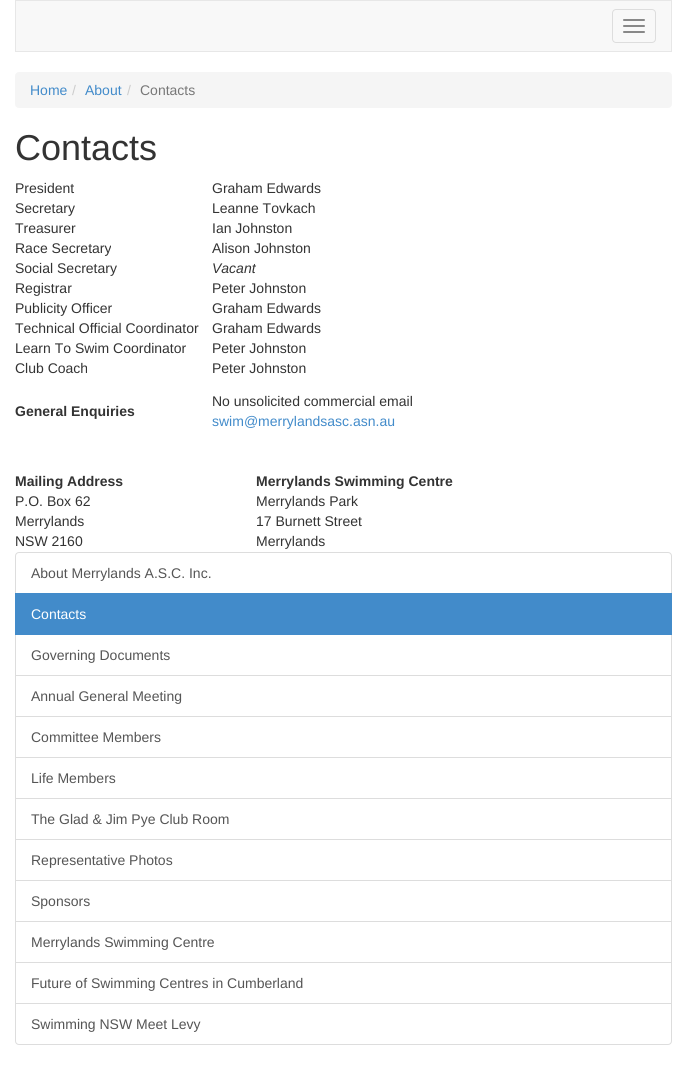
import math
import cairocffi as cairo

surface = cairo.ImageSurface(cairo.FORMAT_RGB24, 687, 1068)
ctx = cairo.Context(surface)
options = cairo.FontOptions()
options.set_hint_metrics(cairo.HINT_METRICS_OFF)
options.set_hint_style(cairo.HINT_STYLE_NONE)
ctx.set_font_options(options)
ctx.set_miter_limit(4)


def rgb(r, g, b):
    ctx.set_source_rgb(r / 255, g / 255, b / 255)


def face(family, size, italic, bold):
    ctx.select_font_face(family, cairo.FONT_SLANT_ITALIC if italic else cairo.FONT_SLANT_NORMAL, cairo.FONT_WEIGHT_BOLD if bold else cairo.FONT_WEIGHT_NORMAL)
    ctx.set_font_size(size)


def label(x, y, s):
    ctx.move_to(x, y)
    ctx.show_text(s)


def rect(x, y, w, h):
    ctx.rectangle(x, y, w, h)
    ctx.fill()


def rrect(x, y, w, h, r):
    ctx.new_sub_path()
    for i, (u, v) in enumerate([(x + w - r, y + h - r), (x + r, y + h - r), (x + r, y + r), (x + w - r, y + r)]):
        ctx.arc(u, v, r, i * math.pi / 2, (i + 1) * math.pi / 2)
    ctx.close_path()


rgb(255, 255, 255)
ctx.paint()
rgb(248, 248, 248)
ctx.rectangle(15.5, 0.5, 656, 51)
ctx.fill_preserve()
rgb(231, 231, 231)
ctx.set_line_width(1)
ctx.stroke()
rrect(612.5, 9.5, 43, 33, 3.5)
rgb(221, 221, 221)
ctx.stroke()
rgb(136, 136, 136)
rrect(623, 19, 22, 2, 1)
ctx.fill()
rrect(623, 25, 22, 2, 1)
ctx.fill()
rrect(623, 31, 22, 2, 1)
ctx.fill()
rgb(245, 245, 245)
rrect(15, 72, 657, 36, 4)
ctx.fill()
face('Liberation Sans', 14, 0, 0)
rgb(66, 139, 202)
label(30, 95, 'Home')
rgb(204, 204, 204)
label(72, 95, '/')
rgb(66, 139, 202)
label(85, 95, 'About')
rgb(204, 204, 204)
label(127, 95, '/')
rgb(119, 119, 119)
label(140, 95, 'Contacts')
face('Liberation Sans', 36, 0, 0)
rgb(51, 51, 51)
label(15, 160, 'Contacts')
face('Liberation Sans', 14, 0, 0)
label(15, 193, 'President')
label(212, 193, 'Graham Edwards')
label(15, 213, 'Secretary')
label(212, 213, 'Leanne Tovkach')
label(15, 233, 'Treasurer')
label(212, 233, 'Ian Johnston')
label(15, 253, 'Race Secretary')
label(212, 253, 'Alison Johnston')
label(15, 273, 'Social Secretary')
face('Liberation Sans', 14, 1, 0)
label(212, 273, 'Vacant')
face('Liberation Sans', 14, 0, 0)
label(15, 293, 'Registrar')
label(212, 293, 'Peter Johnston')
label(15, 313, 'Publicity Officer')
label(212, 313, 'Graham Edwards')
label(15, 333, 'Technical Official Coordinator')
label(212, 333, 'Graham Edwards')
label(15, 353, 'Learn To Swim Coordinator')
label(212, 353, 'Peter Johnston')
label(15, 373, 'Club Coach')
label(212, 373, 'Peter Johnston')
face('Liberation Sans', 14, 0, 1)
label(15, 416, 'General Enquiries')
face('Liberation Sans', 14, 0, 0)
label(212, 406, 'No unsolicited commercial email')
rgb(66, 139, 202)
label(212, 426, 'swim@merrylandsasc.asn.au')
face('Liberation Sans', 14, 0, 1)
rgb(51, 51, 51)
label(15, 486, 'Mailing Address')
face('Liberation Sans', 14, 0, 0)
label(15, 506, 'P.O. Box 62')
label(15, 526, 'Merrylands')
label(15, 546, 'NSW 2160')
face('Liberation Sans', 14, 0, 1)
label(256, 486, 'Merrylands Swimming Centre')
face('Liberation Sans', 14, 0, 0)
label(256, 506, 'Merrylands Park')
label(256, 526, '17 Burnett Street')
label(256, 546, 'Merrylands')
ctx.new_path()
ctx.move_to(19, 552.5)
ctx.line_to(668, 552.5)
ctx.curve_to(670, 552.5, 671.5, 554, 671.5, 556)
ctx.line_to(671.5, 593.5)
ctx.line_to(15.5, 593.5)
ctx.line_to(15.5, 556)
ctx.curve_to(15.5, 554, 17, 552.5, 19, 552.5)
ctx.close_path()
rgb(221, 221, 221)
ctx.stroke()
rgb(85, 85, 85)
label(31, 578, 'About Merrylands A.S.C. Inc.')
ctx.rectangle(15.5, 634.5, 656, 41)
rgb(221, 221, 221)
ctx.stroke()
rgb(66, 139, 202)
rect(15, 593, 657, 42)
rgb(255, 255, 255)
label(31, 619, 'Contacts')
rgb(85, 85, 85)
label(31, 660, 'Governing Documents')
ctx.rectangle(15.5, 675.5, 656, 41)
rgb(221, 221, 221)
ctx.stroke()
rgb(85, 85, 85)
label(31, 701, 'Annual General Meeting')
ctx.rectangle(15.5, 716.5, 656, 41)
rgb(221, 221, 221)
ctx.stroke()
rgb(85, 85, 85)
label(31, 742, 'Committee Members')
ctx.rectangle(15.5, 757.5, 656, 41)
rgb(221, 221, 221)
ctx.stroke()
rgb(85, 85, 85)
label(31, 783, 'Life Members')
ctx.rectangle(15.5, 798.5, 656, 41)
rgb(221, 221, 221)
ctx.stroke()
rgb(85, 85, 85)
label(31, 824, 'The Glad & Jim Pye Club Room')
ctx.rectangle(15.5, 839.5, 656, 41)
rgb(221, 221, 221)
ctx.stroke()
rgb(85, 85, 85)
label(31, 865, 'Representative Photos')
ctx.rectangle(15.5, 880.5, 656, 41)
rgb(221, 221, 221)
ctx.stroke()
rgb(85, 85, 85)
label(31, 906, 'Sponsors')
ctx.rectangle(15.5, 921.5, 656, 41)
rgb(221, 221, 221)
ctx.stroke()
rgb(85, 85, 85)
label(31, 947, 'Merrylands Swimming Centre')
ctx.rectangle(15.5, 962.5, 656, 41)
rgb(221, 221, 221)
ctx.stroke()
rgb(85, 85, 85)
label(31, 988, 'Future of Swimming Centres in Cumberland')
rgb(255, 255, 255)
ctx.new_path()
ctx.move_to(15.5, 1003.5)
ctx.line_to(671.5, 1003.5)
ctx.line_to(671.5, 1041)
ctx.curve_to(671.5, 1043, 670, 1044.5, 668, 1044.5)
ctx.line_to(19, 1044.5)
ctx.curve_to(17, 1044.5, 15.5, 1043, 15.5, 1041)
ctx.close_path()
ctx.fill_preserve()
rgb(221, 221, 221)
ctx.stroke()
rgb(85, 85, 85)
label(31, 1029, 'Swimming NSW Meet Levy')
surface.write_to_png('render.png')
